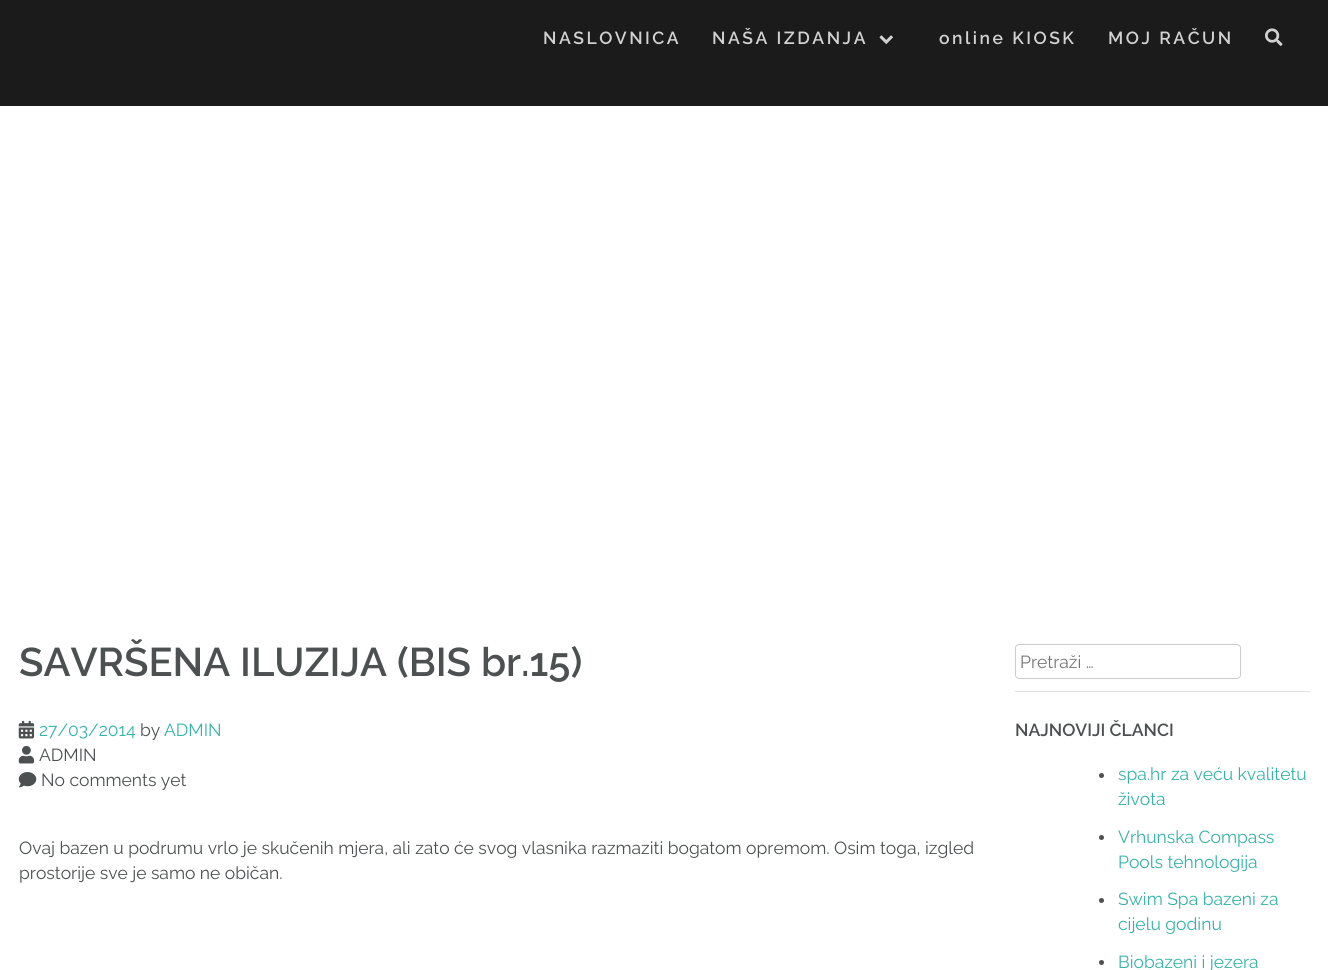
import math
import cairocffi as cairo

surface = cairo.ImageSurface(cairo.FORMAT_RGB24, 1328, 970)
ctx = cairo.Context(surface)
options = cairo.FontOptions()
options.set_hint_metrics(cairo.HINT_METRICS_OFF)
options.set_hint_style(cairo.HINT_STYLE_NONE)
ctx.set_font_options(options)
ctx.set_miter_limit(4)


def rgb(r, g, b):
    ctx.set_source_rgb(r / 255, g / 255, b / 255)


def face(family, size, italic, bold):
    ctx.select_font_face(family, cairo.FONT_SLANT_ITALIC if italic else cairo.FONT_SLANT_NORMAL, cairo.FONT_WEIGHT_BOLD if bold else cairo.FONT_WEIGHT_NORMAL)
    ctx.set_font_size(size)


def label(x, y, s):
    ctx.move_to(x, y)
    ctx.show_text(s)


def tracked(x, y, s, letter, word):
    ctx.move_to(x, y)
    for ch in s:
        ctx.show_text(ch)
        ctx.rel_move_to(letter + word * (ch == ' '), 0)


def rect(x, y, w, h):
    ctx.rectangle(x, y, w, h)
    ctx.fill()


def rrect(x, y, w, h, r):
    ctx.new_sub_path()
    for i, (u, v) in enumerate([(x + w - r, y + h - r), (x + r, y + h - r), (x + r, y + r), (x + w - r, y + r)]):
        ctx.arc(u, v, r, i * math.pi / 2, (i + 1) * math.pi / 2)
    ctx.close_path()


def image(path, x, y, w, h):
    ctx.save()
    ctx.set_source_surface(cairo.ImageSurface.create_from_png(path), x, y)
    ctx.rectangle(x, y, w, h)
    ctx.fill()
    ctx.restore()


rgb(255, 255, 255)
ctx.paint()
rgb(27, 27, 27)
rect(0, 0, 1328, 106)
face('Raleway SemiBold', 17.5, 0, 0)
rgb(209, 209, 209)
tracked(543, 44, 'NASLOVNICA', 2.5, 0)
tracked(712, 44, 'NAŠA IZDANJA', 2.5, 0)
image('image0.png', 879, 35, 14, 9)
tracked(939, 44, 'online KIOSK', 2.5, 0)
tracked(1108, 44, 'MOJ RAČUN', 2.5, 0)
image('image1.png', 1265, 28, 18, 18)
face('Raleway SemiBold', 40, 0, 0)
rgb(77, 80, 81)
label(19, 676, 'SAVRŠENA ILUZIJA (BIS br.15)')
image('image2.png', 18, 720, 17, 19)
face('Raleway', 17.5, 0, 0)
rgb(54, 179, 168)
label(39, 736, '27/03/2014')
rgb(77, 80, 81)
label(140, 736, 'by')
rgb(54, 179, 168)
label(164, 736, 'ADMIN')
image('image3.png', 18, 745, 17, 19)
rgb(77, 80, 81)
label(39, 761, 'ADMIN')
image('image4.png', 18, 772, 19, 16)
label(41, 786, 'No comments yet')
label(19, 854, 'Ovaj bazen u podrumu vrlo je skučenih mjera, ali zato će svog vlasnika razmaziti bogatom opremom. Osim toga, izgled')
label(19, 879, 'prostorije sve je samo ne običan.')
rgb(225, 225, 225)
rect(1015, 691, 295, 1)
rrect(1015.5, 644.5, 225, 34, 3.5)
rgb(204, 204, 204)
ctx.set_line_width(1)
ctx.stroke()
rgb(117, 117, 117)
label(1020, 668, 'Pretraži …')
face('Raleway SemiBold', 17.5, 0, 0)
rgb(77, 80, 81)
label(1015, 736, 'NAJNOVIJI ČLANCI')
ctx.new_path()
ctx.arc(1101.5, 775.5, 2.5, 0, 2 * math.pi)
ctx.fill()
face('Raleway', 17.5, 0, 0)
rgb(54, 179, 168)
label(1118, 780, 'spa.hr za veću kvalitetu')
label(1118, 805, 'života')
rgb(77, 80, 81)
ctx.new_path()
ctx.arc(1101.5, 837.5, 2.5, 0, 2 * math.pi)
ctx.fill()
rgb(54, 179, 168)
label(1118, 843, 'Vrhunska Compass')
label(1118, 868, 'Pools tehnologija')
rgb(77, 80, 81)
ctx.new_path()
ctx.arc(1101.5, 900.5, 2.5, 0, 2 * math.pi)
ctx.fill()
rgb(54, 179, 168)
label(1118, 905, 'Swim Spa bazeni za')
label(1118, 930, 'cijelu godinu')
rgb(77, 80, 81)
ctx.new_path()
ctx.arc(1101.5, 962.5, 2.5, 0, 2 * math.pi)
ctx.fill()
rgb(54, 179, 168)
label(1118, 968, 'Biobazeni i jezera')
surface.write_to_png('render.png')
